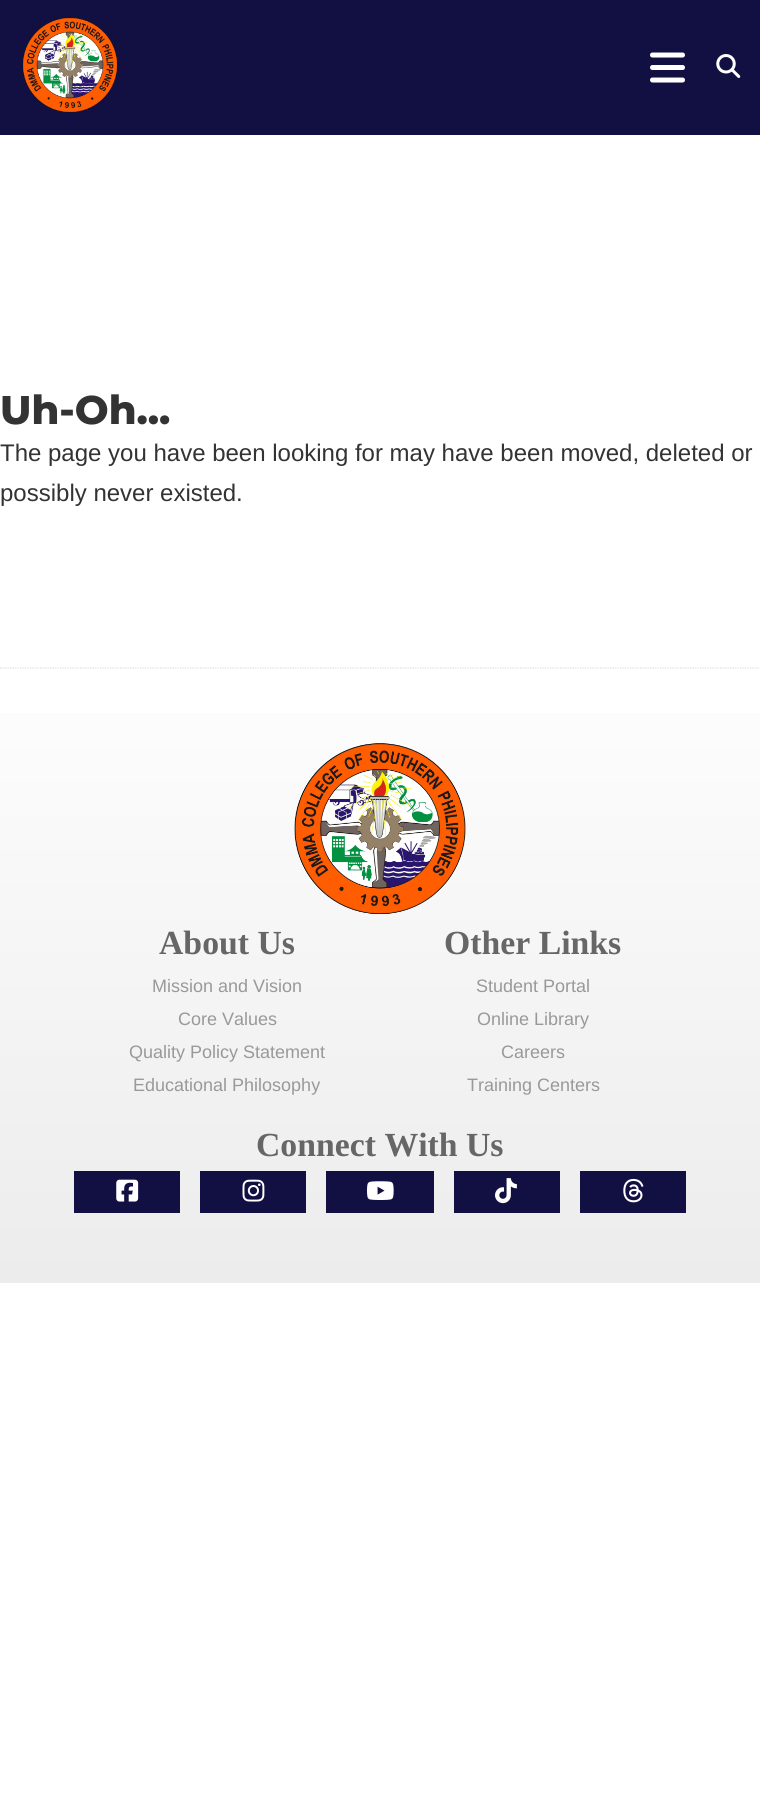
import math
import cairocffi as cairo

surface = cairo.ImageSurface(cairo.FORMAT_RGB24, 760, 1799)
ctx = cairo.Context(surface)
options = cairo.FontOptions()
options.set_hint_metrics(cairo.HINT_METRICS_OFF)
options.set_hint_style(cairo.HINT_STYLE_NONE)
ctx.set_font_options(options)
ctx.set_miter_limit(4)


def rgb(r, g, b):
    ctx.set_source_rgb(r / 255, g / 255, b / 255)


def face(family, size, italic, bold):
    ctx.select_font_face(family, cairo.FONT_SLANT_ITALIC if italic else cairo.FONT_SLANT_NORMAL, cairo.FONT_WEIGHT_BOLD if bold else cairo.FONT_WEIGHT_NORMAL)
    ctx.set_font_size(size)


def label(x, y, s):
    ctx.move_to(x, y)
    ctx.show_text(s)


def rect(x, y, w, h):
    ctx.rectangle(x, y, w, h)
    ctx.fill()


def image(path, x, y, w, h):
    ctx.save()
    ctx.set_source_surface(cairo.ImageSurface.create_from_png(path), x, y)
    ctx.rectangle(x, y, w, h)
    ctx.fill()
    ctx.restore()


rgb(255, 255, 255)
ctx.paint()
rgb(18, 15, 66)
rect(0, 0, 760, 135)
image('image0.png', 22, 17, 96, 96)
image('image1.png', 650, 52, 35, 31)
image('image2.png', 716, 54, 25, 24)
face('Montserrat ExtraBold', 40, 0, 0)
rgb(51, 51, 51)
label(0, 424, 'Uh-Oh...')
face('Liberation Sans', 24, 0, 0)
label(0, 461, 'The page you have been looking for may have been moved, deleted or')
label(0, 501, 'possibly never existed.')
gradient = cairo.LinearGradient(380, 627, 380, 1283)
gradient.add_color_stop_rgba(0, 1, 1, 1, 1)
gradient.add_color_stop_rgba(1, 0.925, 0.925, 0.925, 1)
ctx.set_source(gradient)
rect(0, 713, 760, 570)
ctx.new_path()
ctx.move_to(0, 668)
ctx.line_to(760, 668)
rgb(222, 222, 222)
ctx.set_line_width(1.2)
ctx.set_dash([1.25, 1.25])
ctx.stroke()
image('image3.png', 294, 743, 172, 171)
face('Liberation Serif', 33.75, 0, 1)
rgb(102, 102, 102)
label(159, 954, 'About Us')
face('Liberation Sans', 18, 0, 0)
rgb(153, 153, 153)
label(152, 992, 'Mission and Vision')
label(178, 1025, 'Core Values')
label(129, 1058, 'Quality Policy Statement')
label(133, 1091, 'Educational Philosophy')
face('Liberation Serif', 33.75, 0, 1)
rgb(102, 102, 102)
label(444, 954, 'Other Links')
face('Liberation Sans', 18, 0, 0)
rgb(153, 153, 153)
label(476, 992, 'Student Portal')
label(477, 1025, 'Online Library')
label(501, 1058, 'Careers')
label(467, 1091, 'Training Centers')
face('Liberation Serif', 33.75, 0, 1)
rgb(102, 102, 102)
label(256, 1156, 'Connect With Us')
rgb(18, 15, 66)
rect(74, 1171, 106, 42)
image('image4.png', 116, 1179, 23, 23)
rect(200, 1171, 106, 42)
image('image5.png', 242, 1179, 23, 23)
rect(326, 1171, 108, 42)
image('image6.png', 367, 1181, 27, 19)
rect(454, 1171, 106, 42)
image('image7.png', 495, 1178, 22, 26)
rect(580, 1171, 106, 42)
image('image8.png', 623, 1178, 21, 25)
surface.write_to_png('render.png')
